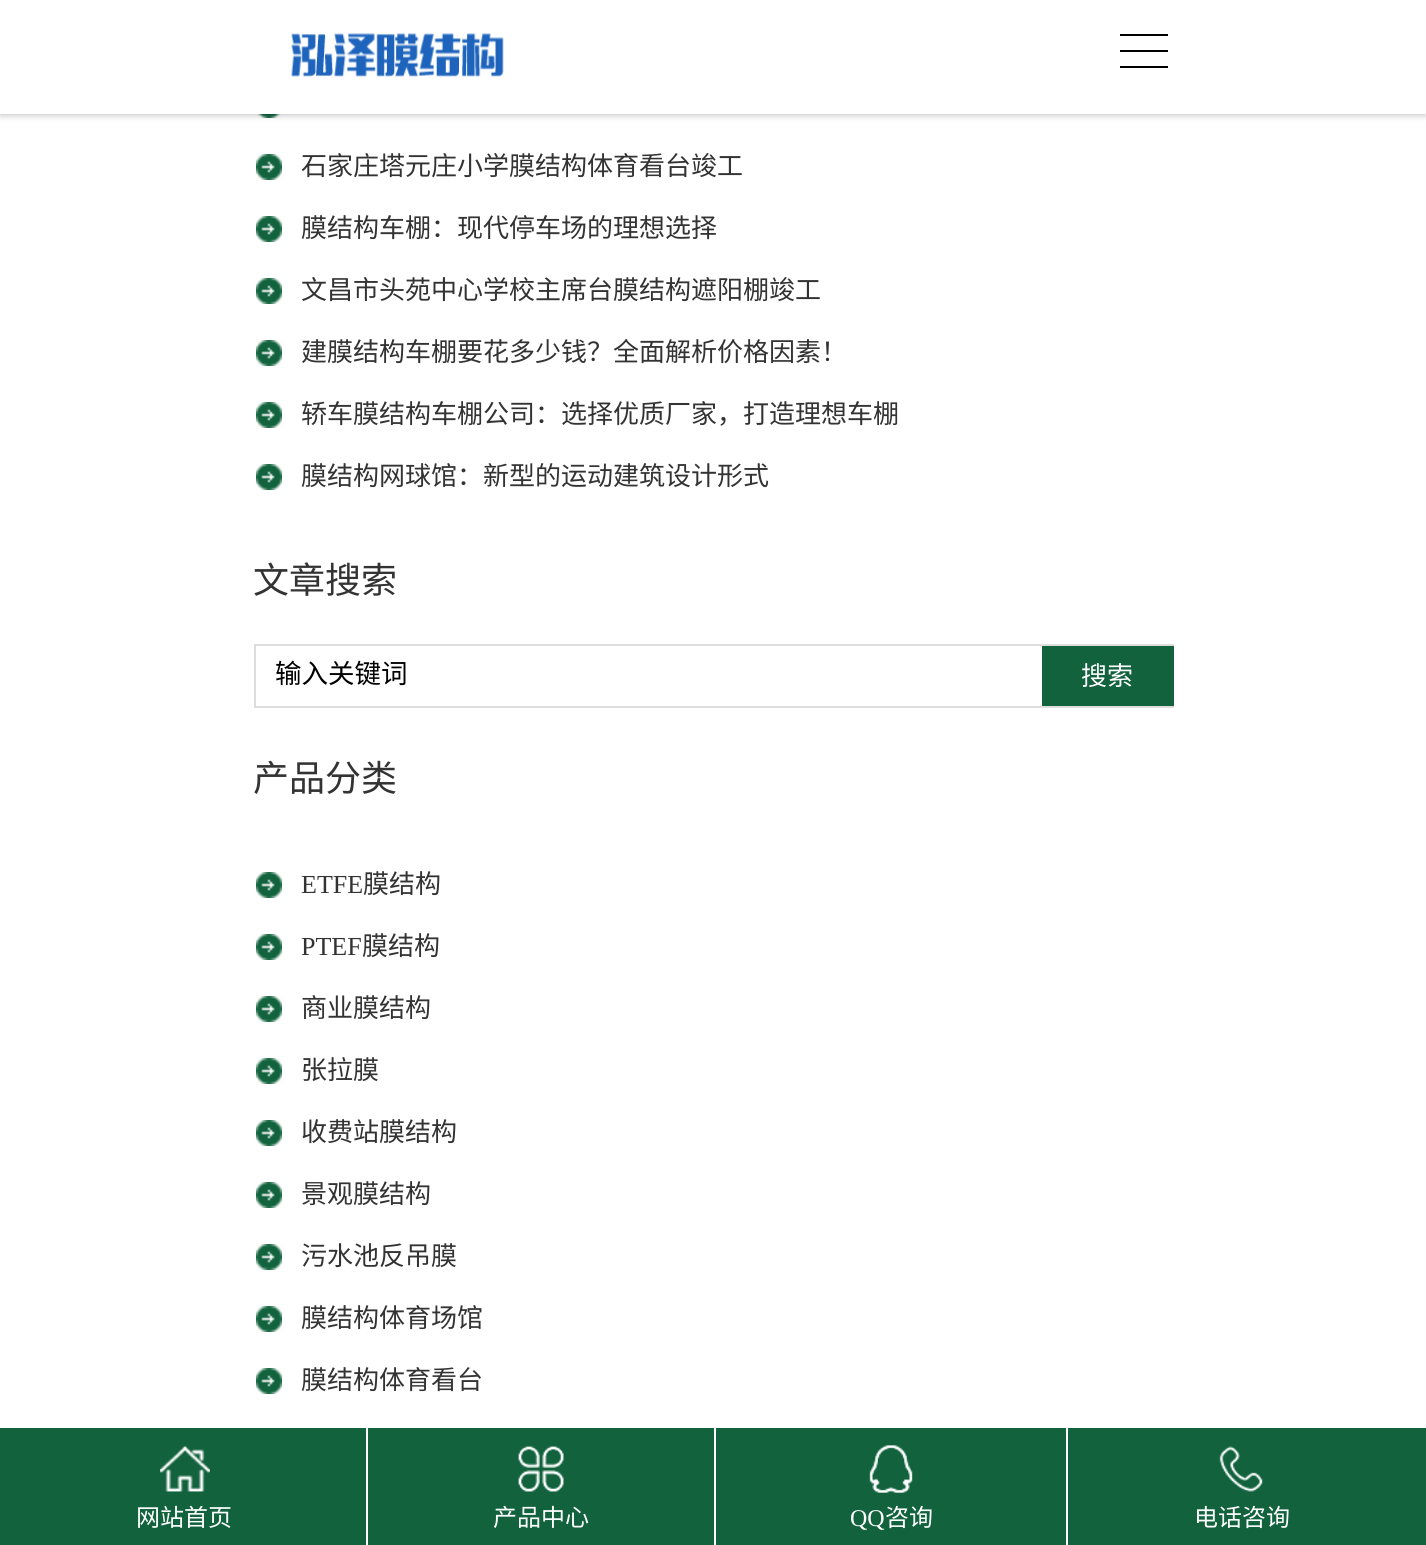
import math
import cairocffi as cairo

surface = cairo.ImageSurface(cairo.FORMAT_RGB24, 1426, 1545)
ctx = cairo.Context(surface)
options = cairo.FontOptions()
options.set_hint_metrics(cairo.HINT_METRICS_OFF)
options.set_hint_style(cairo.HINT_STYLE_NONE)
ctx.set_font_options(options)
ctx.set_miter_limit(4)


def rgb(r, g, b):
    ctx.set_source_rgb(r / 255, g / 255, b / 255)


def face(family, size, italic, bold):
    ctx.select_font_face(family, cairo.FONT_SLANT_ITALIC if italic else cairo.FONT_SLANT_NORMAL, cairo.FONT_WEIGHT_BOLD if bold else cairo.FONT_WEIGHT_NORMAL)
    ctx.set_font_size(size)


def label(x, y, s):
    ctx.move_to(x, y)
    ctx.show_text(s)


def rect(x, y, w, h):
    ctx.rectangle(x, y, w, h)
    ctx.fill()


def rrect(x, y, w, h, r):
    ctx.new_sub_path()
    for i, (u, v) in enumerate([(x + w - r, y + h - r), (x + r, y + h - r), (x + r, y + r), (x + w - r, y + r)]):
        ctx.arc(u, v, r, i * math.pi / 2, (i + 1) * math.pi / 2)
    ctx.close_path()


def soft_shadow(x, y, w, h, r, blur, alpha):
    ctx.push_group_with_content(cairo.CONTENT_ALPHA)
    ctx.set_operator(cairo.OPERATOR_SOURCE)
    for i in range(15, -16, -2):
        e = blur * i / 6
        if min(w, h) + 2 * e > 0:
            ctx.set_source_rgba(0, 0, 0, alpha * math.erfc((i - 1) / 8.5) / 2)
            rrect(x - e, y - e, w + 2 * e, h + 2 * e, max(0, min(r + e + blur * .6, min(w, h) / 2 + e)))
            ctx.fill()
    ctx.mask(ctx.pop_group())


def image(path, x, y, w, h):
    ctx.save()
    ctx.set_source_surface(cairo.ImageSurface.create_from_png(path), x, y)
    ctx.rectangle(x, y, w, h)
    ctx.fill()
    ctx.restore()


rgb(255, 255, 255)
ctx.paint()
image('image1.png', 257, 114, 24, 4)
rgb(0, 0, 0)
soft_shadow(0, 2, 1426, 114, 0, 3, 0.2)
rgb(255, 255, 255)
rect(0, 0, 1426, 114)
image('image0.png', 291, 33, 213, 44)
rgb(0, 0, 0)
rect(1120, 34, 48, 2)
rect(1120, 50, 48, 2)
rect(1120, 66, 48, 2)
image('image2.png', 256, 154, 26, 26)
face('Noto Sans CJK SC', 26, 0, 0)
rgb(51, 51, 51)
label(301, 175, '石家庄塔元庄小学膜结构体育看台竣工')
image('image2.png', 256, 216, 26, 26)
label(301, 237, '膜结构车棚：现代停车场的理想选择')
image('image2.png', 256, 278, 26, 26)
label(301, 299, '文昌市头苑中心学校主席台膜结构遮阳棚竣工')
image('image2.png', 256, 340, 26, 26)
label(301, 361, '建膜结构车棚要花多少钱？全面解析价格因素！')
image('image2.png', 256, 402, 26, 26)
label(301, 423, '轿车膜结构车棚公司：选择优质厂家，打造理想车棚')
image('image2.png', 256, 464, 26, 26)
label(301, 485, '膜结构网球馆：新型的运动建筑设计形式')
face('Noto Sans CJK SC', 36, 0, 0)
label(253, 593, '文章搜索')
ctx.rectangle(255, 645, 918, 62)
rgb(221, 221, 221)
ctx.stroke()
face('Noto Sans CJK SC', 26.5, 0, 0)
rgb(0, 0, 0)
label(275, 683, '输入关键词')
rgb(17, 98, 61)
rect(1042, 646, 132, 60)
face('Noto Sans CJK SC', 26, 0, 0)
rgb(255, 255, 255)
label(1081, 685, '搜索')
face('Noto Sans CJK SC', 36, 0, 0)
rgb(51, 51, 51)
label(253, 791, '产品分类')
image('image2.png', 256, 872, 26, 26)
face('Liberation Serif', 26, 0, 0)
label(301, 893, 'ETFE')
face('Noto Sans CJK SC', 26, 0, 0)
label(363, 893, '膜结构')
image('image2.png', 256, 934, 26, 26)
face('Liberation Serif', 26, 0, 0)
label(301, 955, 'PTEF')
face('Noto Sans CJK SC', 26, 0, 0)
label(362, 955, '膜结构')
image('image2.png', 256, 996, 26, 26)
label(301, 1017, '商业膜结构')
image('image2.png', 256, 1058, 26, 26)
label(301, 1079, '张拉膜')
image('image2.png', 256, 1120, 26, 26)
label(301, 1141, '收费站膜结构')
image('image2.png', 256, 1182, 26, 26)
label(301, 1203, '景观膜结构')
image('image2.png', 256, 1244, 26, 26)
label(301, 1265, '污水池反吊膜')
image('image2.png', 256, 1306, 26, 26)
label(301, 1327, '膜结构体育场馆')
image('image2.png', 256, 1368, 26, 26)
label(301, 1389, '膜结构体育看台')
rgb(17, 98, 61)
rect(0, 1428, 1426, 117)
image('image3.png', 160, 1446, 50, 46)
face('Noto Sans CJK SC', 24, 0, 0)
rgb(255, 255, 255)
label(136, 1526, '网站首页')
rect(714, 1428, 2, 117)
rect(366, 1428, 2, 117)
image('image4.png', 518, 1446, 46, 46)
label(493, 1526, '产品中心')
rect(1066, 1428, 2, 117)
image('image5.png', 869, 1445, 44, 48)
face('Liberation Serif', 24, 0, 0)
label(850, 1526, 'QQ')
face('Noto Sans CJK SC', 24, 0, 0)
label(885, 1526, '咨询')
image('image6.png', 1219, 1446, 44, 46)
label(1194, 1526, '电话咨询')
surface.write_to_png('render.png')
